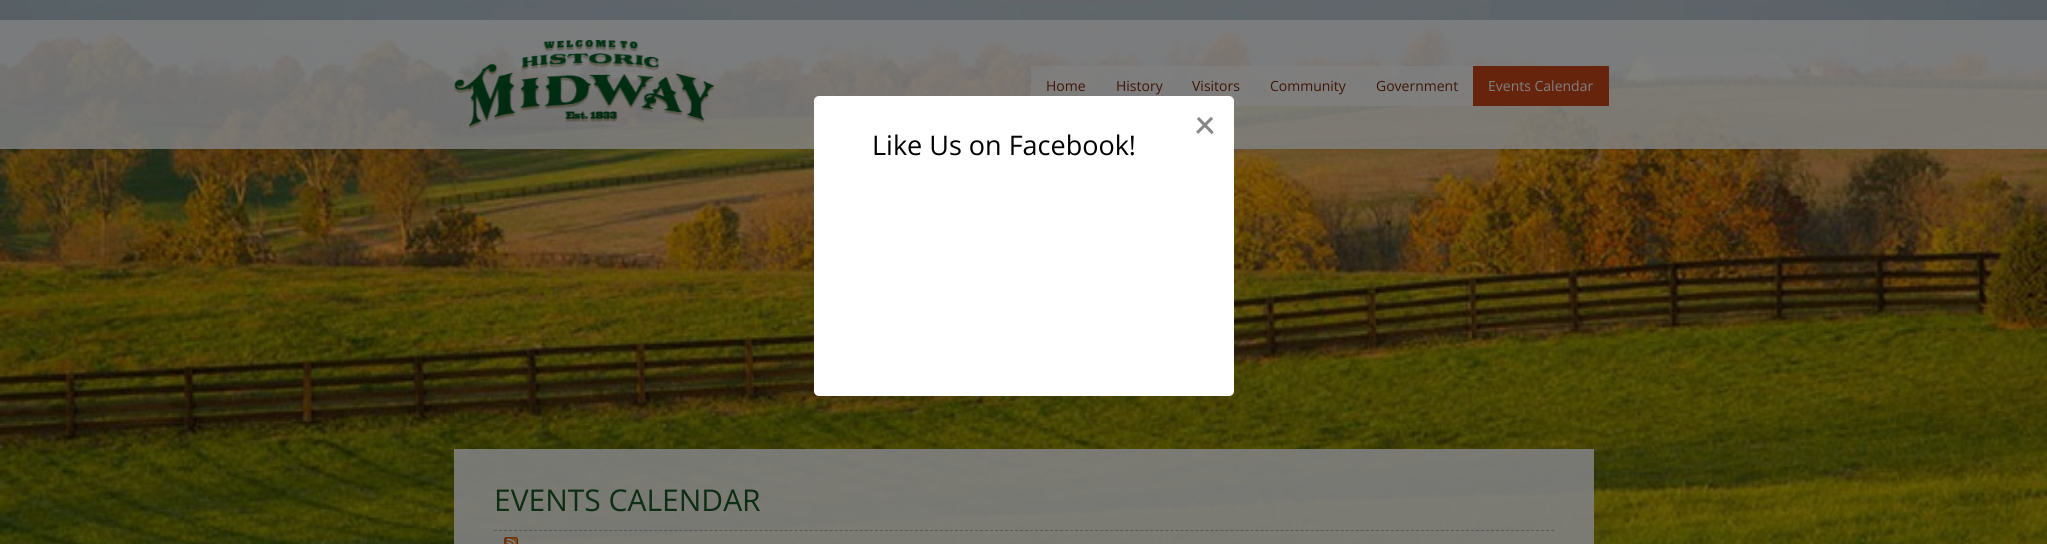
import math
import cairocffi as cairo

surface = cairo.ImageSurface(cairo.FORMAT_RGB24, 2047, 544)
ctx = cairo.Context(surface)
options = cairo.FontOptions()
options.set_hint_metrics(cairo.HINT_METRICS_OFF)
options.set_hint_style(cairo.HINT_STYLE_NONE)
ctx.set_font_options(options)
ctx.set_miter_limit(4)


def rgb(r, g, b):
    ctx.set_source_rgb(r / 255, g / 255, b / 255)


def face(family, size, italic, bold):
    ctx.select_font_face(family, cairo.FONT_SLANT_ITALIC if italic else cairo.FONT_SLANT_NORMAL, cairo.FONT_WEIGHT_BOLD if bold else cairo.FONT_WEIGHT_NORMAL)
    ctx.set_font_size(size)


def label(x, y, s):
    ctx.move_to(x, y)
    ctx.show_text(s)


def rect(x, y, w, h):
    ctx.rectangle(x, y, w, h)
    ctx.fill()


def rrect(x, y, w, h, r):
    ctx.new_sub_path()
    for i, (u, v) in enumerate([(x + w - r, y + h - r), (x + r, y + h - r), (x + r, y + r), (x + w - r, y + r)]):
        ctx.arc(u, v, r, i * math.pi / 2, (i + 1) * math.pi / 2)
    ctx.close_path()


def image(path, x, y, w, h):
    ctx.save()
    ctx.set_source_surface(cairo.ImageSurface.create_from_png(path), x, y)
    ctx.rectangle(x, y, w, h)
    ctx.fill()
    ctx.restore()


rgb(255, 255, 255)
ctx.paint()
image('image0.png', 0, 0, 2047, 544)
ctx.set_source_rgba(0.502, 0.502, 0.502, 0.85)
rect(0, 20, 2047, 129)
image('image1.png', 454, 40, 260, 89)
ctx.set_source_rgba(0.502, 0.502, 0.502, 0.8)
rect(1031, 66, 70, 30)
face('Open Sans', 14, 0, 0)
rgb(62, 22, 8)
label(1046, 91, 'Home')
ctx.set_source_rgba(0.502, 0.502, 0.502, 0.8)
rect(1101, 66, 76, 30)
rgb(62, 22, 8)
label(1116, 91, 'History')
ctx.set_source_rgba(0.502, 0.502, 0.502, 0.8)
rect(1177, 66, 78, 40)
rgb(62, 22, 8)
label(1192, 91, 'Visitors')
ctx.set_source_rgba(0.502, 0.502, 0.502, 0.8)
rect(1255, 66, 106, 40)
rgb(62, 22, 8)
label(1270, 91, 'Community')
ctx.set_source_rgba(0.502, 0.502, 0.502, 0.8)
rect(1361, 66, 112, 40)
rgb(62, 22, 8)
label(1376, 91, 'Government')
rgb(103, 36, 13)
rect(1473, 66, 136, 40)
rgb(128, 128, 128)
label(1488, 91, 'Events Calendar')
ctx.set_source_rgba(0.502, 0.502, 0.502, 0.9)
rect(454, 449, 1140, 95)
face('Open Sans', 30, 0, 0)
rgb(13, 45, 20)
label(494, 511, 'EVENTS CALENDAR')
ctx.new_path()
ctx.move_to(494, 530.5)
ctx.line_to(1554, 530.5)
rgb(87, 87, 87)
ctx.set_line_width(1)
ctx.set_dash([3, 2.01])
ctx.stroke()
image('image2.png', 504, 537, 14, 7)
rgb(255, 255, 255)
rrect(814, 96, 420, 300, 5)
ctx.fill()
image('image3.png', 1196, 117, 18, 18)
face('Open Sans', 27, 0, 0)
rgb(0, 0, 0)
label(872, 155, 'Like Us on Facebook!')
surface.write_to_png('render.png')
